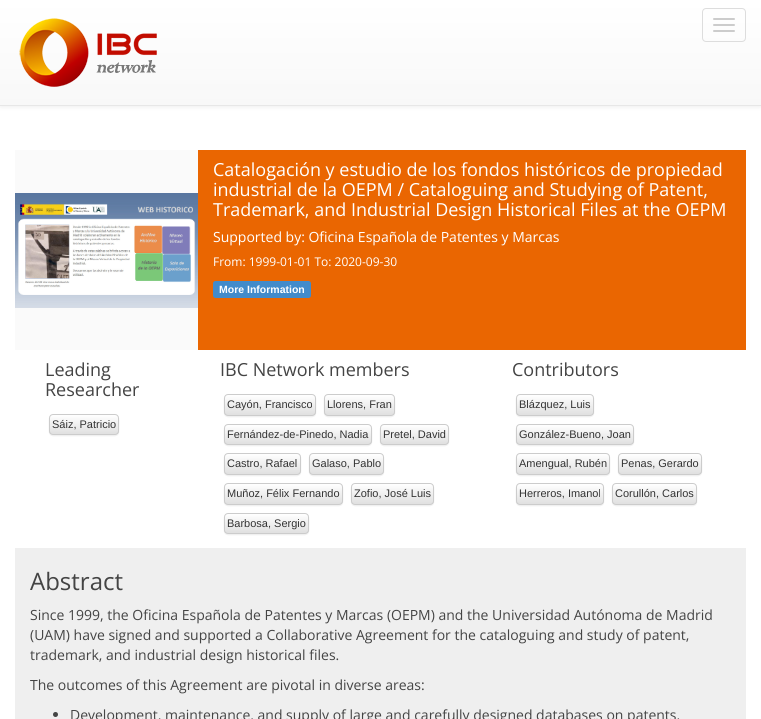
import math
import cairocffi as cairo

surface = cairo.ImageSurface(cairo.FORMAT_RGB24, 761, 719)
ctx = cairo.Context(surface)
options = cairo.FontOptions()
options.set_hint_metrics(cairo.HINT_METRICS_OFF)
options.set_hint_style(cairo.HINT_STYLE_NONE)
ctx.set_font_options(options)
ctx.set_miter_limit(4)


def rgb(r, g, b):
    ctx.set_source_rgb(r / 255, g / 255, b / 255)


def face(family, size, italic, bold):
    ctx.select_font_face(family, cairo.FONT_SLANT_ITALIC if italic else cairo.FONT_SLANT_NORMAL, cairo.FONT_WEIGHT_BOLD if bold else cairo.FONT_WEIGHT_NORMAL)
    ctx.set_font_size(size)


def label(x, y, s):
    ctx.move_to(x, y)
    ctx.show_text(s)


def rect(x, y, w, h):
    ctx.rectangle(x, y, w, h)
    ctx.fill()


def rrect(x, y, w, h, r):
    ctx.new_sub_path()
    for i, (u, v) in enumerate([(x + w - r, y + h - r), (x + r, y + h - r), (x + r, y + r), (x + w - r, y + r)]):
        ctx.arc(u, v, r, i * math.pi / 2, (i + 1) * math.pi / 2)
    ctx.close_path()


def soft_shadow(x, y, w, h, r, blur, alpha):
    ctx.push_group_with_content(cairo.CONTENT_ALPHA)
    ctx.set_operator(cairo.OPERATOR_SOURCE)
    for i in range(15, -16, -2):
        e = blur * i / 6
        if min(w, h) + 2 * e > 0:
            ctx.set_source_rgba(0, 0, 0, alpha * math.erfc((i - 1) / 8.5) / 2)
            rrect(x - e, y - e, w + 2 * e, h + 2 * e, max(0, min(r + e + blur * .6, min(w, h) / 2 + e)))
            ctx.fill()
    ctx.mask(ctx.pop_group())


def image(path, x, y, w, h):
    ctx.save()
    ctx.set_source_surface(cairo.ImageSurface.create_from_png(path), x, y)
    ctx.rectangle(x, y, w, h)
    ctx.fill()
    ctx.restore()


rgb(255, 255, 255)
ctx.paint()
rgb(0, 0, 0)
soft_shadow(0, 1, 761, 106, 0, 2.5, 0.07)
gradient = cairo.LinearGradient(381, 0, 381, 105)
gradient.add_color_stop_rgba(0, 1, 1, 1, 1)
gradient.add_color_stop_rgba(1, 0.973, 0.973, 0.973, 1)
ctx.set_source(gradient)
rect(0, 0, 761, 105)
rgb(231, 231, 231)
rect(0, 105, 761, 1)
image('image0.png', 19, 18, 138, 69)
rrect(702.5, 8.5, 43, 33, 3.5)
rgb(221, 221, 221)
ctx.set_line_width(1)
ctx.stroke()
rgb(204, 204, 204)
rrect(713, 18, 22, 2, 1)
ctx.fill()
rrect(713, 24, 22, 2, 1)
ctx.fill()
rrect(713, 30, 22, 2, 1)
ctx.fill()
rgb(234, 102, 1)
rect(198, 150, 548, 200)
rgb(250, 250, 250)
rect(15, 150, 183, 200)
image('image1.png', 15, 193, 183, 115)
face('Open Sans', 18, 0, 0)
rgb(255, 255, 255)
label(213, 176, 'Catalogación y estudio de los fondos históricos de propiedad')
label(213, 196, 'industrial de la OEPM / Cataloguing and Studying of Patent,')
label(213, 216, 'Trademark, and Industrial Design Historical Files at the OEPM')
face('Open Sans', 14, 0, 0)
label(213, 242, 'Supported by: Oficina Española de Patentes y Marcas')
face('Open Sans', 12, 0, 0)
label(213, 266, 'From: 1999-01-01 To: 2020-09-30')
rgb(66, 139, 202)
rrect(213, 281, 98, 17, 2.5)
ctx.fill()
face('Liberation Sans', 10.5, 0, 1)
rgb(255, 255, 255)
label(219, 293, 'More Information')
face('Open Sans', 18, 0, 0)
rgb(68, 68, 68)
label(45, 376, 'Leading')
label(45, 396, 'Researcher')
rgb(0, 0, 0)
soft_shadow(49, 415, 70, 21, 4, 0.5, 0.07)
ctx.save()
rrect(49, 414, 70, 21, 4)
ctx.clip()
gradient = cairo.LinearGradient(84, 415, 84, 434)
gradient.add_color_stop_rgba(0, 1, 1, 1, 1)
gradient.add_color_stop_rgba(1, 0.878, 0.878, 0.878, 1)
ctx.set_source(gradient)
rect(49, 415, 70, 19)
ctx.restore()
rrect(49.5, 414.5, 69, 20, 3.5)
rgb(204, 204, 204)
ctx.stroke()
face('Liberation Sans', 11, 0, 0)
rgb(51, 51, 51)
label(52, 428, 'Sáiz, Patricio')
face('Open Sans', 18, 0, 0)
rgb(68, 68, 68)
label(220, 376, 'IBC Network members')
rgb(0, 0, 0)
soft_shadow(224, 395, 92, 22, 4, 0.5, 0.07)
ctx.save()
rrect(224, 394, 92, 22, 4)
ctx.clip()
gradient = cairo.LinearGradient(270, 395, 270, 415)
gradient.add_color_stop_rgba(0, 1, 1, 1, 1)
gradient.add_color_stop_rgba(1, 0.878, 0.878, 0.878, 1)
ctx.set_source(gradient)
rect(224, 395, 92, 20)
ctx.restore()
rrect(224.5, 394.5, 91, 21, 3.5)
rgb(204, 204, 204)
ctx.stroke()
face('Liberation Sans', 11, 0, 0)
rgb(51, 51, 51)
label(227, 408, 'Cayón, Francisco')
rgb(0, 0, 0)
soft_shadow(324, 395, 71, 22, 4, 0.5, 0.07)
ctx.save()
rrect(324, 394, 71, 22, 4)
ctx.clip()
gradient = cairo.LinearGradient(360, 395, 360, 415)
gradient.add_color_stop_rgba(0, 1, 1, 1, 1)
gradient.add_color_stop_rgba(1, 0.878, 0.878, 0.878, 1)
ctx.set_source(gradient)
rect(324, 395, 71, 20)
ctx.restore()
rrect(324.5, 394.5, 70, 21, 3.5)
rgb(204, 204, 204)
ctx.stroke()
rgb(51, 51, 51)
label(327, 408, 'Llorens, Fran')
rgb(0, 0, 0)
soft_shadow(224, 425, 148, 21, 4, 0.5, 0.07)
ctx.save()
rrect(224, 424, 148, 21, 4)
ctx.clip()
gradient = cairo.LinearGradient(298, 425, 298, 444)
gradient.add_color_stop_rgba(0, 1, 1, 1, 1)
gradient.add_color_stop_rgba(1, 0.878, 0.878, 0.878, 1)
ctx.set_source(gradient)
rect(224, 425, 148, 19)
ctx.restore()
rrect(224.5, 424.5, 147, 20, 3.5)
rgb(204, 204, 204)
ctx.stroke()
rgb(51, 51, 51)
label(227, 438, 'Fernández-de-Pinedo, Nadia')
rgb(0, 0, 0)
soft_shadow(380, 425, 69, 21, 4, 0.5, 0.07)
ctx.save()
rrect(380, 424, 69, 21, 4)
ctx.clip()
gradient = cairo.LinearGradient(415, 425, 415, 444)
gradient.add_color_stop_rgba(0, 1, 1, 1, 1)
gradient.add_color_stop_rgba(1, 0.878, 0.878, 0.878, 1)
ctx.set_source(gradient)
rect(380, 425, 69, 19)
ctx.restore()
rrect(380.5, 424.5, 68, 20, 3.5)
rgb(204, 204, 204)
ctx.stroke()
rgb(51, 51, 51)
label(383, 438, 'Pretel, David')
rgb(0, 0, 0)
soft_shadow(224, 454, 77, 22, 4, 0.5, 0.07)
ctx.save()
rrect(224, 453, 77, 22, 4)
ctx.clip()
gradient = cairo.LinearGradient(263, 454, 263, 474)
gradient.add_color_stop_rgba(0, 1, 1, 1, 1)
gradient.add_color_stop_rgba(1, 0.878, 0.878, 0.878, 1)
ctx.set_source(gradient)
rect(224, 454, 77, 20)
ctx.restore()
rrect(224.5, 453.5, 76, 21, 3.5)
rgb(204, 204, 204)
ctx.stroke()
rgb(51, 51, 51)
label(227, 467, 'Castro, Rafael')
rgb(0, 0, 0)
soft_shadow(309, 454, 75, 22, 4, 0.5, 0.07)
ctx.save()
rrect(309, 453, 75, 22, 4)
ctx.clip()
gradient = cairo.LinearGradient(347, 454, 347, 474)
gradient.add_color_stop_rgba(0, 1, 1, 1, 1)
gradient.add_color_stop_rgba(1, 0.878, 0.878, 0.878, 1)
ctx.set_source(gradient)
rect(309, 454, 75, 20)
ctx.restore()
rrect(309.5, 453.5, 74, 21, 3.5)
rgb(204, 204, 204)
ctx.stroke()
rgb(51, 51, 51)
label(312, 467, 'Galaso, Pablo')
rgb(0, 0, 0)
soft_shadow(224, 484, 119, 22, 4, 0.5, 0.07)
ctx.save()
rrect(224, 483, 119, 22, 4)
ctx.clip()
gradient = cairo.LinearGradient(284, 484, 284, 504)
gradient.add_color_stop_rgba(0, 1, 1, 1, 1)
gradient.add_color_stop_rgba(1, 0.878, 0.878, 0.878, 1)
ctx.set_source(gradient)
rect(224, 484, 119, 20)
ctx.restore()
rrect(224.5, 483.5, 118, 21, 3.5)
rgb(204, 204, 204)
ctx.stroke()
rgb(51, 51, 51)
label(227, 497, 'Muñoz, Félix Fernando')
rgb(0, 0, 0)
soft_shadow(351, 484, 83, 22, 4, 0.5, 0.07)
ctx.save()
rrect(351, 483, 83, 22, 4)
ctx.clip()
gradient = cairo.LinearGradient(393, 484, 393, 504)
gradient.add_color_stop_rgba(0, 1, 1, 1, 1)
gradient.add_color_stop_rgba(1, 0.878, 0.878, 0.878, 1)
ctx.set_source(gradient)
rect(351, 484, 83, 20)
ctx.restore()
rrect(351.5, 483.5, 82, 21, 3.5)
rgb(204, 204, 204)
ctx.stroke()
rgb(51, 51, 51)
label(354, 497, 'Zofio, José Luis')
rgb(0, 0, 0)
soft_shadow(224, 514, 85, 21, 4, 0.5, 0.07)
ctx.save()
rrect(224, 513, 85, 21, 4)
ctx.clip()
gradient = cairo.LinearGradient(267, 514, 267, 533)
gradient.add_color_stop_rgba(0, 1, 1, 1, 1)
gradient.add_color_stop_rgba(1, 0.878, 0.878, 0.878, 1)
ctx.set_source(gradient)
rect(224, 514, 85, 19)
ctx.restore()
rrect(224.5, 513.5, 84, 20, 3.5)
rgb(204, 204, 204)
ctx.stroke()
rgb(51, 51, 51)
label(227, 527, 'Barbosa, Sergio')
face('Open Sans', 18, 0, 0)
rgb(68, 68, 68)
label(512, 376, 'Contributors')
rgb(0, 0, 0)
soft_shadow(516, 395, 78, 22, 4, 0.5, 0.07)
ctx.save()
rrect(516, 394, 78, 22, 4)
ctx.clip()
gradient = cairo.LinearGradient(555, 395, 555, 415)
gradient.add_color_stop_rgba(0, 1, 1, 1, 1)
gradient.add_color_stop_rgba(1, 0.878, 0.878, 0.878, 1)
ctx.set_source(gradient)
rect(516, 395, 78, 20)
ctx.restore()
rrect(516.5, 394.5, 77, 21, 3.5)
rgb(204, 204, 204)
ctx.stroke()
face('Liberation Sans', 11, 0, 0)
rgb(51, 51, 51)
label(519, 408, 'Blázquez, Luis')
rgb(0, 0, 0)
soft_shadow(516, 425, 118, 21, 4, 0.5, 0.07)
ctx.save()
rrect(516, 424, 118, 21, 4)
ctx.clip()
gradient = cairo.LinearGradient(575, 425, 575, 444)
gradient.add_color_stop_rgba(0, 1, 1, 1, 1)
gradient.add_color_stop_rgba(1, 0.878, 0.878, 0.878, 1)
ctx.set_source(gradient)
rect(516, 425, 118, 19)
ctx.restore()
rrect(516.5, 424.5, 117, 20, 3.5)
rgb(204, 204, 204)
ctx.stroke()
rgb(51, 51, 51)
label(519, 438, 'González-Bueno, Joan')
rgb(0, 0, 0)
soft_shadow(516, 454, 94, 22, 4, 0.5, 0.07)
ctx.save()
rrect(516, 453, 94, 22, 4)
ctx.clip()
gradient = cairo.LinearGradient(563, 454, 563, 474)
gradient.add_color_stop_rgba(0, 1, 1, 1, 1)
gradient.add_color_stop_rgba(1, 0.878, 0.878, 0.878, 1)
ctx.set_source(gradient)
rect(516, 454, 94, 20)
ctx.restore()
rrect(516.5, 453.5, 93, 21, 3.5)
rgb(204, 204, 204)
ctx.stroke()
rgb(51, 51, 51)
label(519, 467, 'Amengual, Rubén')
rgb(0, 0, 0)
soft_shadow(618, 454, 84, 22, 4, 0.5, 0.07)
ctx.save()
rrect(618, 453, 84, 22, 4)
ctx.clip()
gradient = cairo.LinearGradient(660, 454, 660, 474)
gradient.add_color_stop_rgba(0, 1, 1, 1, 1)
gradient.add_color_stop_rgba(1, 0.878, 0.878, 0.878, 1)
ctx.set_source(gradient)
rect(618, 454, 84, 20)
ctx.restore()
rrect(618.5, 453.5, 83, 21, 3.5)
rgb(204, 204, 204)
ctx.stroke()
rgb(51, 51, 51)
label(621, 467, 'Penas, Gerardo')
rgb(0, 0, 0)
soft_shadow(516, 484, 88, 22, 4, 0.5, 0.07)
ctx.save()
rrect(516, 483, 88, 22, 4)
ctx.clip()
gradient = cairo.LinearGradient(560, 484, 560, 504)
gradient.add_color_stop_rgba(0, 1, 1, 1, 1)
gradient.add_color_stop_rgba(1, 0.878, 0.878, 0.878, 1)
ctx.set_source(gradient)
rect(516, 484, 88, 20)
ctx.restore()
rrect(516.5, 483.5, 87, 21, 3.5)
rgb(204, 204, 204)
ctx.stroke()
rgb(51, 51, 51)
label(519, 497, 'Herreros, Imanol')
rgb(0, 0, 0)
soft_shadow(612, 484, 85, 22, 4, 0.5, 0.07)
ctx.save()
rrect(612, 483, 85, 22, 4)
ctx.clip()
gradient = cairo.LinearGradient(655, 484, 655, 504)
gradient.add_color_stop_rgba(0, 1, 1, 1, 1)
gradient.add_color_stop_rgba(1, 0.878, 0.878, 0.878, 1)
ctx.set_source(gradient)
rect(612, 484, 85, 20)
ctx.restore()
rrect(612.5, 483.5, 84, 21, 3.5)
rgb(204, 204, 204)
ctx.stroke()
rgb(51, 51, 51)
label(615, 497, 'Corullón, Carlos')
rgb(239, 239, 239)
rect(15, 548, 731, 171)
face('Open Sans', 24, 0, 0)
rgb(68, 68, 68)
label(30, 590, 'Abstract')
face('Open Sans', 14, 0, 0)
label(30, 620, 'Since 1999, the Oficina Española de Patentes y Marcas (OEPM) and the Universidad Autónoma de Madrid')
label(30, 640, '(UAM) have signed and supported a Collaborative Agreement for the cataloguing and study of patent,')
label(30, 660, 'trademark, and industrial design historical files.')
label(30, 690, 'The outcomes of this Agreement are pivotal in diverse areas:')
ctx.new_path()
ctx.arc(55.5, 714.5, 2.5, 0, 2 * math.pi)
ctx.fill()
label(70, 720, 'Development, maintenance, and supply of large and carefully designed databases on patents,')
surface.write_to_png('render.png')
